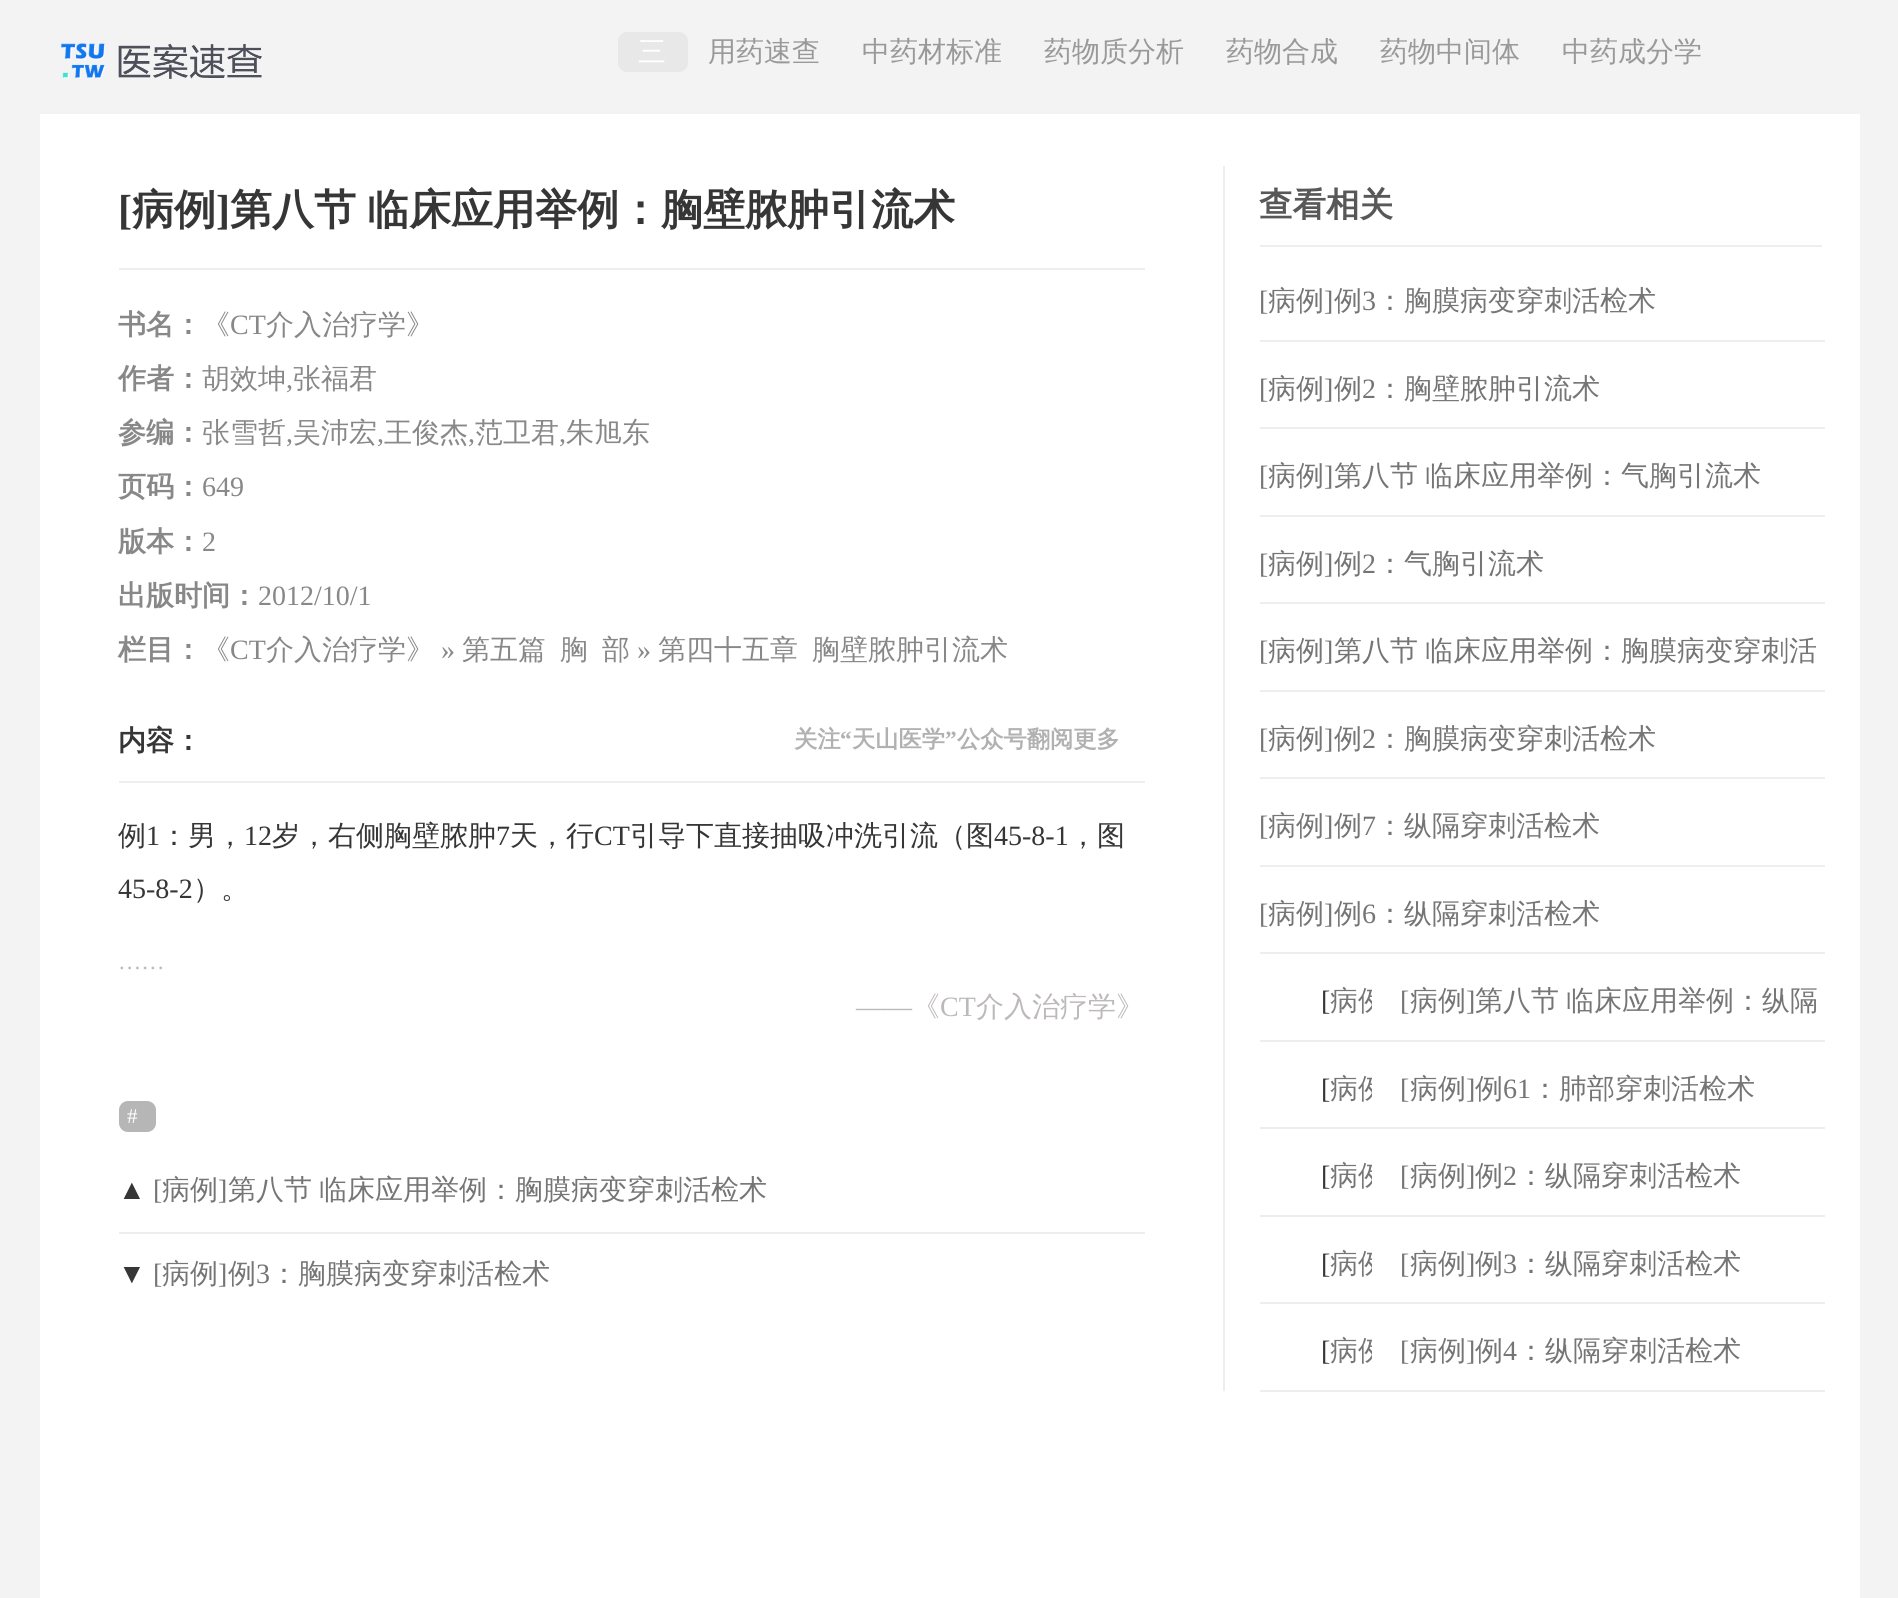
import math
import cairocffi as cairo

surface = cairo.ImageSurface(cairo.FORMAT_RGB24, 1898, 1598)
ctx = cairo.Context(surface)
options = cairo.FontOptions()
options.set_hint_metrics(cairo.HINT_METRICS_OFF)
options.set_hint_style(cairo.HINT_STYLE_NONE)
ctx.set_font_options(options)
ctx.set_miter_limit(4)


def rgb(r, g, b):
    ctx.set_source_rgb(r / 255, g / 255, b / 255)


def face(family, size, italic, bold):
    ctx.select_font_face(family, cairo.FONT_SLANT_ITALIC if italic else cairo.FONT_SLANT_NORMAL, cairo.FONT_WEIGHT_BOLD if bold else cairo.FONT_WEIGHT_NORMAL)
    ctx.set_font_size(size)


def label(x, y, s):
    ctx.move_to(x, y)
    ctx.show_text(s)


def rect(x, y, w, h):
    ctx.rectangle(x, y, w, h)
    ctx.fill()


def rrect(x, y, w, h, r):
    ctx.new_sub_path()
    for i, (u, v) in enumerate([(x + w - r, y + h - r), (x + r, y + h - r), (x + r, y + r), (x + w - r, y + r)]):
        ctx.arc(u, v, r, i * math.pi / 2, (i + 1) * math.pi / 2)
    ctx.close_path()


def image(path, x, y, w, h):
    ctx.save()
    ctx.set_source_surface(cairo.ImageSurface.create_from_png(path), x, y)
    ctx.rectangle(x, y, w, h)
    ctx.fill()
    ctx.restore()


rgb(243, 243, 243)
ctx.paint()
image('image0.png', 61, 43, 201, 36)
rgb(232, 232, 232)
rrect(618, 32, 70, 40, 9)
ctx.fill()
face('WenQuanYi Zen Hei Medium', 28, 0, 0)
rgb(255, 255, 255)
label(638, 61, '三')
rgb(153, 153, 153)
label(708, 61, '用药速查')
label(862, 61, '中药材标准')
label(1044, 61, '药物质分析')
label(1226, 61, '药物合成')
label(1380, 61, '药物中间体')
label(1562, 61, '中药成分学')
rgb(255, 255, 255)
rect(40, 114, 1820, 1484)
rgb(238, 238, 238)
rect(119, 268, 1026, 2)
face('Liberation Serif', 42, 0, 1)
rgb(54, 54, 54)
label(118, 224, '[')
face('WenQuanYi Zen Hei', 42, 0, 1)
label(132, 224, '病例')
face('Liberation Serif', 42, 0, 1)
label(216, 224, ']')
face('WenQuanYi Zen Hei', 42, 0, 1)
label(230, 224, '第八节')
label(367, 224, '临床应用举例：胸壁脓肿引流术')
face('WenQuanYi Zen Hei', 28, 0, 1)
rgb(136, 136, 136)
label(118, 334, '书名：')
face('WenQuanYi Zen Hei Medium', 28, 0, 0)
label(202, 334, '《')
face('Liberation Serif', 28, 0, 0)
label(230, 334, 'CT')
face('WenQuanYi Zen Hei Medium', 28, 0, 0)
label(266, 334, '介入治疗学》')
face('WenQuanYi Zen Hei', 28, 0, 1)
label(118, 388, '作者：')
face('WenQuanYi Zen Hei Medium', 28, 0, 0)
label(202, 388, '胡效坤')
face('Liberation Serif', 28, 0, 0)
label(286, 388, ',')
face('WenQuanYi Zen Hei Medium', 28, 0, 0)
label(293, 388, '张福君')
face('WenQuanYi Zen Hei', 28, 0, 1)
label(118, 442, '参编：')
face('WenQuanYi Zen Hei Medium', 28, 0, 0)
label(202, 442, '张雪哲')
face('Liberation Serif', 28, 0, 0)
label(286, 442, ',')
face('WenQuanYi Zen Hei Medium', 28, 0, 0)
label(293, 442, '吴沛宏')
face('Liberation Serif', 28, 0, 0)
label(377, 442, ',')
face('WenQuanYi Zen Hei Medium', 28, 0, 0)
label(384, 442, '王俊杰')
face('Liberation Serif', 28, 0, 0)
label(468, 442, ',')
face('WenQuanYi Zen Hei Medium', 28, 0, 0)
label(475, 442, '范卫君')
face('Liberation Serif', 28, 0, 0)
label(559, 442, ',')
face('WenQuanYi Zen Hei Medium', 28, 0, 0)
label(566, 442, '朱旭东')
face('WenQuanYi Zen Hei', 28, 0, 1)
label(118, 496, '页码：')
face('Liberation Serif', 28, 0, 0)
label(202, 496, '649')
face('WenQuanYi Zen Hei', 28, 0, 1)
label(118, 551, '版本：')
face('Liberation Serif', 28, 0, 0)
label(202, 551, '2')
face('WenQuanYi Zen Hei', 28, 0, 1)
label(118, 605, '出版时间：')
face('Liberation Serif', 28, 0, 0)
label(258, 605, '2012/10/1')
face('WenQuanYi Zen Hei', 28, 0, 1)
label(118, 659, '栏目：')
face('WenQuanYi Zen Hei Medium', 28, 0, 0)
label(202, 659, '《')
face('Liberation Serif', 28, 0, 0)
label(230, 659, 'CT')
face('WenQuanYi Zen Hei Medium', 28, 0, 0)
label(266, 659, '介入治疗学》')
face('Liberation Serif', 28, 0, 0)
label(441, 659, '»')
face('WenQuanYi Zen Hei Medium', 28, 0, 0)
label(462, 659, '第五篇')
label(560, 659, '胸')
label(602, 659, '部')
face('Liberation Serif', 28, 0, 0)
label(637, 659, '»')
face('WenQuanYi Zen Hei Medium', 28, 0, 0)
label(658, 659, '第四十五章')
label(812, 659, '胸壁脓肿引流术')
rgb(238, 238, 238)
rect(119, 781, 1026, 2)
face('WenQuanYi Zen Hei', 28, 0, 1)
rgb(54, 54, 54)
label(118, 750, '内容：')
face('WenQuanYi Zen Hei', 23.25, 0, 1)
rgb(177, 177, 177)
label(794, 747, '关注')
face('Liberation Serif', 23.25, 0, 1)
label(840, 747, '“')
face('WenQuanYi Zen Hei', 23.25, 0, 1)
label(852, 747, '天山医学')
face('Liberation Serif', 23.25, 0, 1)
label(945, 747, '”')
face('WenQuanYi Zen Hei', 23.25, 0, 1)
label(957, 747, '公众号翻阅更多')
face('WenQuanYi Zen Hei Medium', 28, 0, 0)
rgb(54, 54, 54)
label(118, 845, '例')
face('Liberation Serif', 28, 0, 0)
label(146, 845, '1')
face('WenQuanYi Zen Hei Medium', 28, 0, 0)
label(160, 845, '：男，')
face('Liberation Serif', 28, 0, 0)
label(244, 845, '12')
face('WenQuanYi Zen Hei Medium', 28, 0, 0)
label(272, 845, '岁，右侧胸壁脓肿')
face('Liberation Serif', 28, 0, 0)
label(496, 845, '7')
face('WenQuanYi Zen Hei Medium', 28, 0, 0)
label(510, 845, '天，行')
face('Liberation Serif', 28, 0, 0)
label(594, 845, 'CT')
face('WenQuanYi Zen Hei Medium', 28, 0, 0)
label(630, 845, '引导下直接抽吸冲洗引流（图')
face('Liberation Serif', 28, 0, 0)
label(994, 845, '45-8-1')
face('WenQuanYi Zen Hei Medium', 28, 0, 0)
label(1069, 845, '，图')
face('Liberation Serif', 28, 0, 0)
label(118, 898, '45-8-2')
face('WenQuanYi Zen Hei Medium', 28, 0, 0)
label(193, 898, '）。')
face('Liberation Serif', 23.25, 0, 0)
rgb(189, 185, 185)
label(118, 969, '……')
face('Liberation Serif', 28, 0, 0)
label(856, 1016, '——')
face('WenQuanYi Zen Hei Medium', 28, 0, 0)
label(912, 1016, '《')
face('Liberation Serif', 28, 0, 0)
label(940, 1016, 'CT')
face('WenQuanYi Zen Hei Medium', 28, 0, 0)
label(976, 1016, '介入治疗学》')
rgb(182, 182, 182)
rrect(119, 1101, 37, 31, 9)
ctx.fill()
face('Liberation Serif', 21, 0, 0)
rgb(255, 255, 255)
label(127, 1123, '#')
rgb(238, 238, 238)
rect(119, 1232, 1026, 2)
face('Liberation Serif', 28, 0, 0)
rgb(54, 54, 54)
label(118, 1199, '▲')
rgb(117, 117, 117)
label(153, 1199, '[')
face('WenQuanYi Zen Hei Medium', 28, 0, 0)
label(162, 1199, '病例')
face('Liberation Serif', 28, 0, 0)
label(218, 1199, ']')
face('WenQuanYi Zen Hei Medium', 28, 0, 0)
label(228, 1199, '第八节')
label(319, 1199, '临床应用举例：胸膜病变穿刺活检术')
face('Liberation Serif', 28, 0, 0)
rgb(54, 54, 54)
label(118, 1283, '▼')
rgb(117, 117, 117)
label(153, 1283, '[')
face('WenQuanYi Zen Hei Medium', 28, 0, 0)
label(162, 1283, '病例')
face('Liberation Serif', 28, 0, 0)
label(218, 1283, ']')
face('WenQuanYi Zen Hei Medium', 28, 0, 0)
label(228, 1283, '例')
face('Liberation Serif', 28, 0, 0)
label(256, 1283, '3')
face('WenQuanYi Zen Hei Medium', 28, 0, 0)
label(270, 1283, '：胸膜病变穿刺活检术')
rgb(238, 238, 238)
rect(1223, 166, 2, 1225)
rect(1260, 245, 562, 2)
face('WenQuanYi Zen Hei', 33.5, 0, 1)
rgb(88, 88, 88)
label(1259, 216, '查看相关')
rgb(238, 238, 238)
rect(1260, 340, 565, 2)
face('Liberation Serif', 28, 0, 0)
rgb(117, 117, 117)
label(1259, 310, '[')
face('WenQuanYi Zen Hei Medium', 28, 0, 0)
label(1268, 310, '病例')
face('Liberation Serif', 28, 0, 0)
label(1324, 310, ']')
face('WenQuanYi Zen Hei Medium', 28, 0, 0)
label(1334, 310, '例')
face('Liberation Serif', 28, 0, 0)
label(1362, 310, '3')
face('WenQuanYi Zen Hei Medium', 28, 0, 0)
label(1376, 310, '：胸膜病变穿刺活检术')
rgb(238, 238, 238)
rect(1260, 427, 565, 2)
face('Liberation Serif', 28, 0, 0)
rgb(117, 117, 117)
label(1259, 398, '[')
face('WenQuanYi Zen Hei Medium', 28, 0, 0)
label(1268, 398, '病例')
face('Liberation Serif', 28, 0, 0)
label(1324, 398, ']')
face('WenQuanYi Zen Hei Medium', 28, 0, 0)
label(1334, 398, '例')
face('Liberation Serif', 28, 0, 0)
label(1362, 398, '2')
face('WenQuanYi Zen Hei Medium', 28, 0, 0)
label(1376, 398, '：胸壁脓肿引流术')
rgb(238, 238, 238)
rect(1260, 515, 565, 2)
face('Liberation Serif', 28, 0, 0)
rgb(117, 117, 117)
label(1259, 485, '[')
face('WenQuanYi Zen Hei Medium', 28, 0, 0)
label(1268, 485, '病例')
face('Liberation Serif', 28, 0, 0)
label(1324, 485, ']')
face('WenQuanYi Zen Hei Medium', 28, 0, 0)
label(1334, 485, '第八节')
label(1425, 485, '临床应用举例：气胸引流术')
rgb(238, 238, 238)
rect(1260, 602, 565, 2)
face('Liberation Serif', 28, 0, 0)
rgb(117, 117, 117)
label(1259, 573, '[')
face('WenQuanYi Zen Hei Medium', 28, 0, 0)
label(1268, 573, '病例')
face('Liberation Serif', 28, 0, 0)
label(1324, 573, ']')
face('WenQuanYi Zen Hei Medium', 28, 0, 0)
label(1334, 573, '例')
face('Liberation Serif', 28, 0, 0)
label(1362, 573, '2')
face('WenQuanYi Zen Hei Medium', 28, 0, 0)
label(1376, 573, '：气胸引流术')
rgb(238, 238, 238)
rect(1260, 690, 565, 2)
face('Liberation Serif', 28, 0, 0)
rgb(117, 117, 117)
label(1259, 660, '[')
face('WenQuanYi Zen Hei Medium', 28, 0, 0)
label(1268, 660, '病例')
face('Liberation Serif', 28, 0, 0)
label(1324, 660, ']')
face('WenQuanYi Zen Hei Medium', 28, 0, 0)
label(1334, 660, '第八节')
label(1425, 660, '临床应用举例：胸膜病变穿刺活')
rgb(238, 238, 238)
rect(1260, 777, 565, 2)
face('Liberation Serif', 28, 0, 0)
rgb(117, 117, 117)
label(1259, 748, '[')
face('WenQuanYi Zen Hei Medium', 28, 0, 0)
label(1268, 748, '病例')
face('Liberation Serif', 28, 0, 0)
label(1324, 748, ']')
face('WenQuanYi Zen Hei Medium', 28, 0, 0)
label(1334, 748, '例')
face('Liberation Serif', 28, 0, 0)
label(1362, 748, '2')
face('WenQuanYi Zen Hei Medium', 28, 0, 0)
label(1376, 748, '：胸膜病变穿刺活检术')
rgb(238, 238, 238)
rect(1260, 865, 565, 2)
face('Liberation Serif', 28, 0, 0)
rgb(117, 117, 117)
label(1259, 835, '[')
face('WenQuanYi Zen Hei Medium', 28, 0, 0)
label(1268, 835, '病例')
face('Liberation Serif', 28, 0, 0)
label(1324, 835, ']')
face('WenQuanYi Zen Hei Medium', 28, 0, 0)
label(1334, 835, '例')
face('Liberation Serif', 28, 0, 0)
label(1362, 835, '7')
face('WenQuanYi Zen Hei Medium', 28, 0, 0)
label(1376, 835, '：纵隔穿刺活检术')
rgb(238, 238, 238)
rect(1260, 952, 565, 2)
face('Liberation Serif', 28, 0, 0)
rgb(117, 117, 117)
label(1259, 923, '[')
face('WenQuanYi Zen Hei Medium', 28, 0, 0)
label(1268, 923, '病例')
face('Liberation Serif', 28, 0, 0)
label(1324, 923, ']')
face('WenQuanYi Zen Hei Medium', 28, 0, 0)
label(1334, 923, '例')
face('Liberation Serif', 28, 0, 0)
label(1362, 923, '6')
face('WenQuanYi Zen Hei Medium', 28, 0, 0)
label(1376, 923, '：纵隔穿刺活检术')
rgb(238, 238, 238)
rect(1260, 1040, 565, 2)
face('Liberation Serif', 28, 0, 0)
rgb(54, 54, 54)
label(1321, 1010, '[')
ctx.save()
ctx.rectangle(1260, 973, 112, 56)
ctx.clip()
face('WenQuanYi Zen Hei Medium', 28, 0, 0)
rgb(117, 117, 117)
label(1330, 1010, '病例')
ctx.restore()
rgb(117, 117, 117)
label(1400, 1010, '[')
face('WenQuanYi Zen Hei Medium', 28, 0, 0)
label(1410, 1010, '病例')
face('Liberation Serif', 28, 0, 0)
label(1466, 1010, ']')
face('WenQuanYi Zen Hei Medium', 28, 0, 0)
label(1475, 1010, '第八节')
label(1566, 1010, '临床应用举例：纵隔')
rgb(238, 238, 238)
rect(1260, 1127, 565, 2)
face('Liberation Serif', 28, 0, 0)
rgb(54, 54, 54)
label(1321, 1098, '[')
ctx.save()
ctx.rectangle(1260, 1061, 112, 56)
ctx.clip()
face('WenQuanYi Zen Hei Medium', 28, 0, 0)
rgb(117, 117, 117)
label(1330, 1098, '病例')
ctx.restore()
rgb(117, 117, 117)
label(1400, 1098, '[')
face('WenQuanYi Zen Hei Medium', 28, 0, 0)
label(1410, 1098, '病例')
face('Liberation Serif', 28, 0, 0)
label(1466, 1098, ']')
face('WenQuanYi Zen Hei Medium', 28, 0, 0)
label(1475, 1098, '例')
face('Liberation Serif', 28, 0, 0)
label(1503, 1098, '61')
face('WenQuanYi Zen Hei Medium', 28, 0, 0)
label(1531, 1098, '：肺部穿刺活检术')
rgb(238, 238, 238)
rect(1260, 1215, 565, 2)
face('Liberation Serif', 28, 0, 0)
rgb(54, 54, 54)
label(1321, 1185, '[')
ctx.save()
ctx.rectangle(1260, 1148, 112, 56)
ctx.clip()
face('WenQuanYi Zen Hei Medium', 28, 0, 0)
rgb(117, 117, 117)
label(1330, 1185, '病例')
ctx.restore()
rgb(117, 117, 117)
label(1400, 1185, '[')
face('WenQuanYi Zen Hei Medium', 28, 0, 0)
label(1410, 1185, '病例')
face('Liberation Serif', 28, 0, 0)
label(1466, 1185, ']')
face('WenQuanYi Zen Hei Medium', 28, 0, 0)
label(1475, 1185, '例')
face('Liberation Serif', 28, 0, 0)
label(1503, 1185, '2')
face('WenQuanYi Zen Hei Medium', 28, 0, 0)
label(1517, 1185, '：纵隔穿刺活检术')
rgb(238, 238, 238)
rect(1260, 1302, 565, 2)
face('Liberation Serif', 28, 0, 0)
rgb(54, 54, 54)
label(1321, 1273, '[')
ctx.save()
ctx.rectangle(1260, 1236, 112, 56)
ctx.clip()
face('WenQuanYi Zen Hei Medium', 28, 0, 0)
rgb(117, 117, 117)
label(1330, 1273, '病例')
ctx.restore()
rgb(117, 117, 117)
label(1400, 1273, '[')
face('WenQuanYi Zen Hei Medium', 28, 0, 0)
label(1410, 1273, '病例')
face('Liberation Serif', 28, 0, 0)
label(1466, 1273, ']')
face('WenQuanYi Zen Hei Medium', 28, 0, 0)
label(1475, 1273, '例')
face('Liberation Serif', 28, 0, 0)
label(1503, 1273, '3')
face('WenQuanYi Zen Hei Medium', 28, 0, 0)
label(1517, 1273, '：纵隔穿刺活检术')
rgb(238, 238, 238)
rect(1260, 1390, 565, 2)
face('Liberation Serif', 28, 0, 0)
rgb(54, 54, 54)
label(1321, 1360, '[')
ctx.save()
ctx.rectangle(1260, 1323, 112, 56)
ctx.clip()
face('WenQuanYi Zen Hei Medium', 28, 0, 0)
rgb(117, 117, 117)
label(1330, 1360, '病例')
ctx.restore()
rgb(117, 117, 117)
label(1400, 1360, '[')
face('WenQuanYi Zen Hei Medium', 28, 0, 0)
label(1410, 1360, '病例')
face('Liberation Serif', 28, 0, 0)
label(1466, 1360, ']')
face('WenQuanYi Zen Hei Medium', 28, 0, 0)
label(1475, 1360, '例')
face('Liberation Serif', 28, 0, 0)
label(1503, 1360, '4')
face('WenQuanYi Zen Hei Medium', 28, 0, 0)
label(1517, 1360, '：纵隔穿刺活检术')
surface.write_to_png('render.png')
